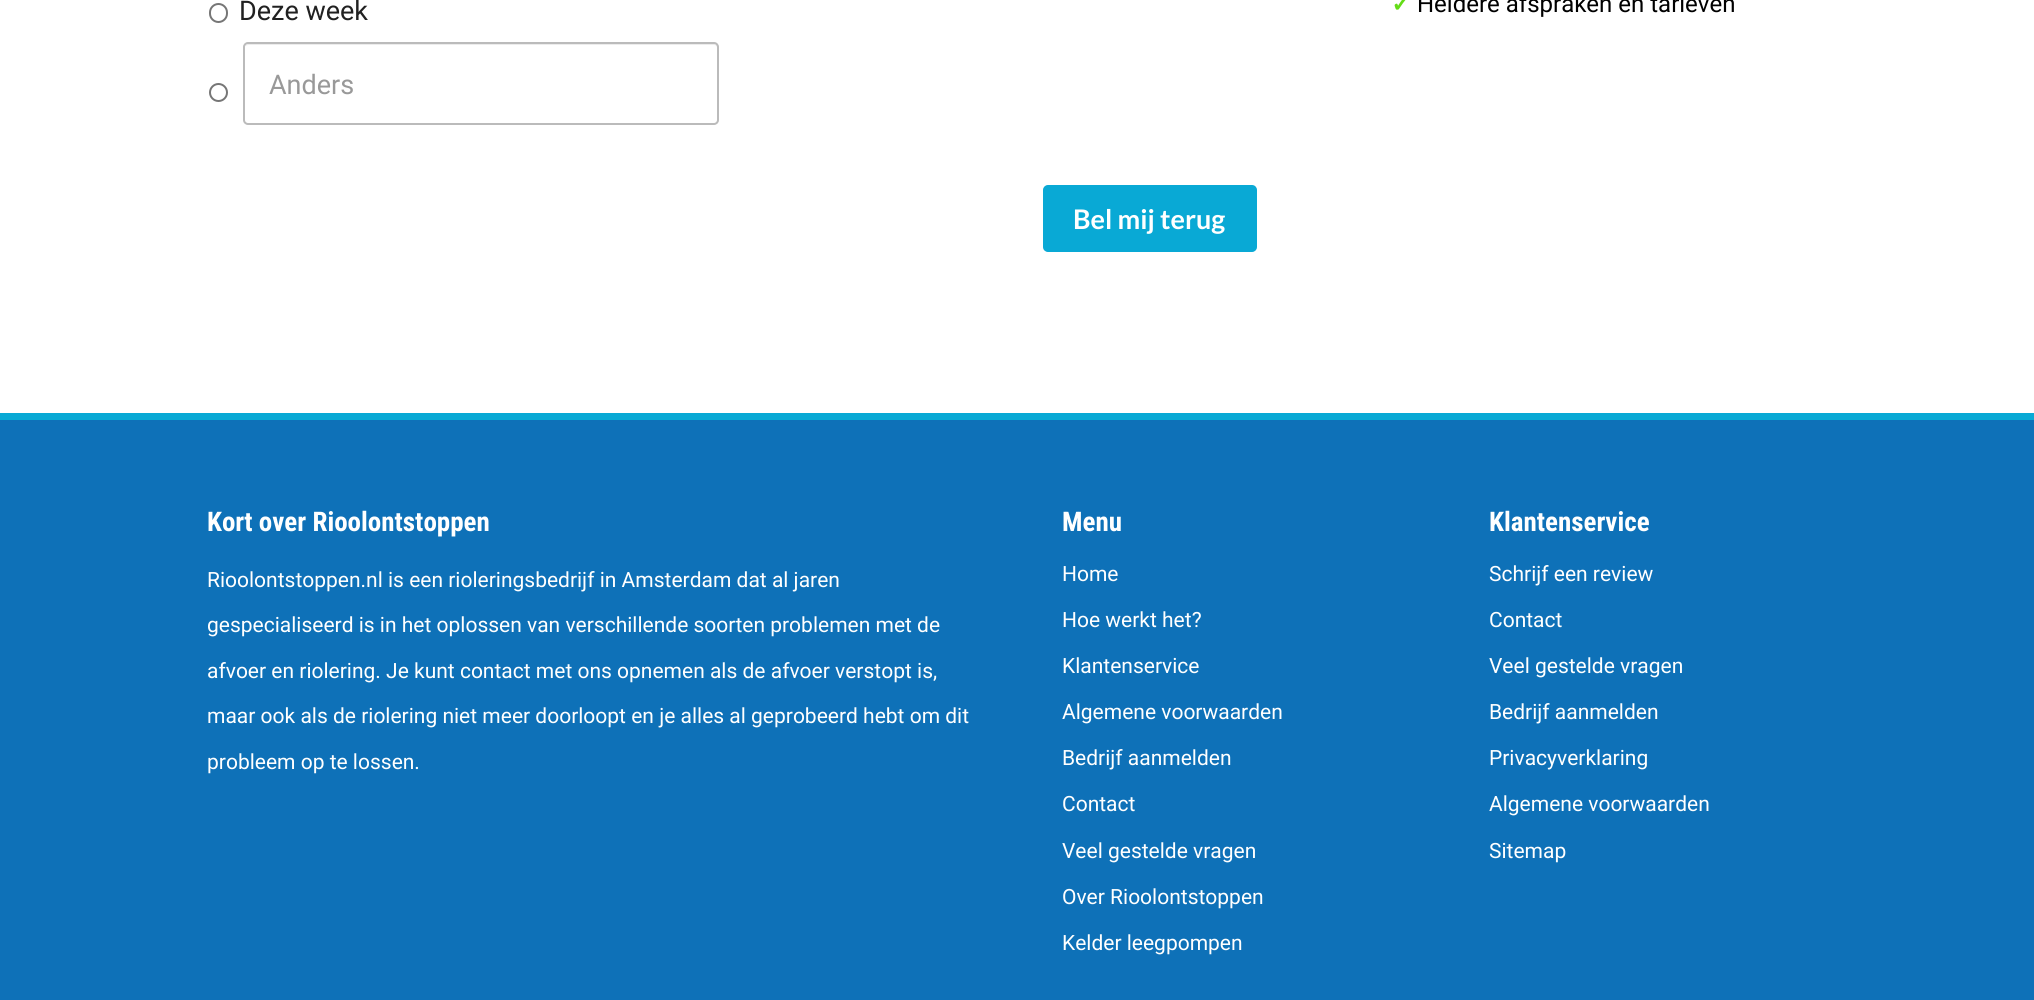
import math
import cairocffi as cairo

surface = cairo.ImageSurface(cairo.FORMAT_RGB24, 2034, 1000)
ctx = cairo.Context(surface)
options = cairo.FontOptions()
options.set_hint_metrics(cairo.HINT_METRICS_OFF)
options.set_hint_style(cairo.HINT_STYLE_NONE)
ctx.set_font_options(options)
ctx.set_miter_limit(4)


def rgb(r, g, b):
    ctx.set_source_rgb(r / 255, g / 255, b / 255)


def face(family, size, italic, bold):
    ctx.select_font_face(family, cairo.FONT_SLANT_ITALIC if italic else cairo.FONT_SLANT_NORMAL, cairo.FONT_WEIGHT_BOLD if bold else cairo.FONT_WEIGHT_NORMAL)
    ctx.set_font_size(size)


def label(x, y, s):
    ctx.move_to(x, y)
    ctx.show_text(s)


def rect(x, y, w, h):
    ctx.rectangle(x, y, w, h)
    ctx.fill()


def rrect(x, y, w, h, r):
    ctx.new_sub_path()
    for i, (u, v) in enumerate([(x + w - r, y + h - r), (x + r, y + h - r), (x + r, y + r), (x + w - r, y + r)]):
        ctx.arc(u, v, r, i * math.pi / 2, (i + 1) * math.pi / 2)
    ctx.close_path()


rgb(14, 113, 184)
ctx.paint()
rgb(255, 255, 255)
rect(0, 0, 2034, 413)
rrect(210, 4, 17, 18, 8.5)
rgb(118, 118, 118)
ctx.stroke()
face('Roboto', 27, 0, 0)
rgb(33, 33, 33)
label(239, 20, 'Deze week')
ctx.new_path()
ctx.arc(218.5, 92.5, 8.5, 0, 2 * math.pi)
rgb(118, 118, 118)
ctx.stroke()
rgb(236, 236, 236)
ctx.new_path()
ctx.move_to(248, 45)
ctx.line_to(714, 45)
ctx.curve_to(716, 45, 717, 46, 717, 48)
ctx.line_to(717, 47)
ctx.curve_to(717, 45, 716, 44, 714, 44)
ctx.line_to(248, 44)
ctx.curve_to(247, 44, 246, 45, 245, 46)
ctx.close_path()
ctx.fill()
rrect(244, 43, 474, 81, 4)
rgb(187, 187, 187)
ctx.stroke()
rgb(153, 153, 153)
label(269, 94, 'Anders')
rgb(9, 169, 213)
rrect(1044, 186, 212, 65, 4)
ctx.fill_preserve()
ctx.stroke()
face('Lato', 27, 0, 1)
rgb(255, 255, 255)
label(1073, 229, 'Bel mij terug')
face('DejaVu Sans', 24, 0, 1)
rgb(100, 221, 23)
label(1391, 12, '✓')
face('Roboto', 24, 0, 0)
rgb(0, 0, 0)
label(1417, 12, 'Heldere afspraken en tarieven')
rgb(9, 169, 213)
rect(0, 413, 2034, 7)
face('Roboto Condensed', 27, 0, 1)
rgb(255, 255, 255)
label(207, 531, 'Kort over Rioolontstoppen')
face('Roboto', 21, 0, 0)
label(207, 587, 'Rioolontstoppen.nl is een rioleringsbedrijf in Amsterdam dat al jaren')
label(207, 632, 'gespecialiseerd is in het oplossen van verschillende soorten problemen met de')
label(207, 678, 'afvoer en riolering. Je kunt contact met ons opnemen als de afvoer verstopt is,')
label(207, 723, 'maar ook als de riolering niet meer doorloopt en je alles al geprobeerd hebt om dit')
label(207, 769, 'probleem op te lossen.')
face('Roboto Condensed', 27, 0, 1)
label(1062, 531, 'Menu')
face('Roboto', 21, 0, 0)
label(1062, 581, 'Home')
label(1062, 627, 'Hoe werkt het?')
label(1062, 673, 'Klantenservice')
label(1062, 719, 'Algemene voorwaarden')
label(1062, 765, 'Bedrijf aanmelden')
label(1062, 811, 'Contact')
label(1062, 858, 'Veel gestelde vragen')
label(1062, 904, 'Over Rioolontstoppen')
label(1062, 950, 'Kelder leegpompen')
face('Roboto Condensed', 27, 0, 1)
label(1489, 531, 'Klantenservice')
face('Roboto', 21, 0, 0)
label(1489, 581, 'Schrijf een review')
label(1489, 627, 'Contact')
label(1489, 673, 'Veel gestelde vragen')
label(1489, 719, 'Bedrijf aanmelden')
label(1489, 765, 'Privacyverklaring')
label(1489, 811, 'Algemene voorwaarden')
label(1489, 858, 'Sitemap')
surface.write_to_png('render.png')
